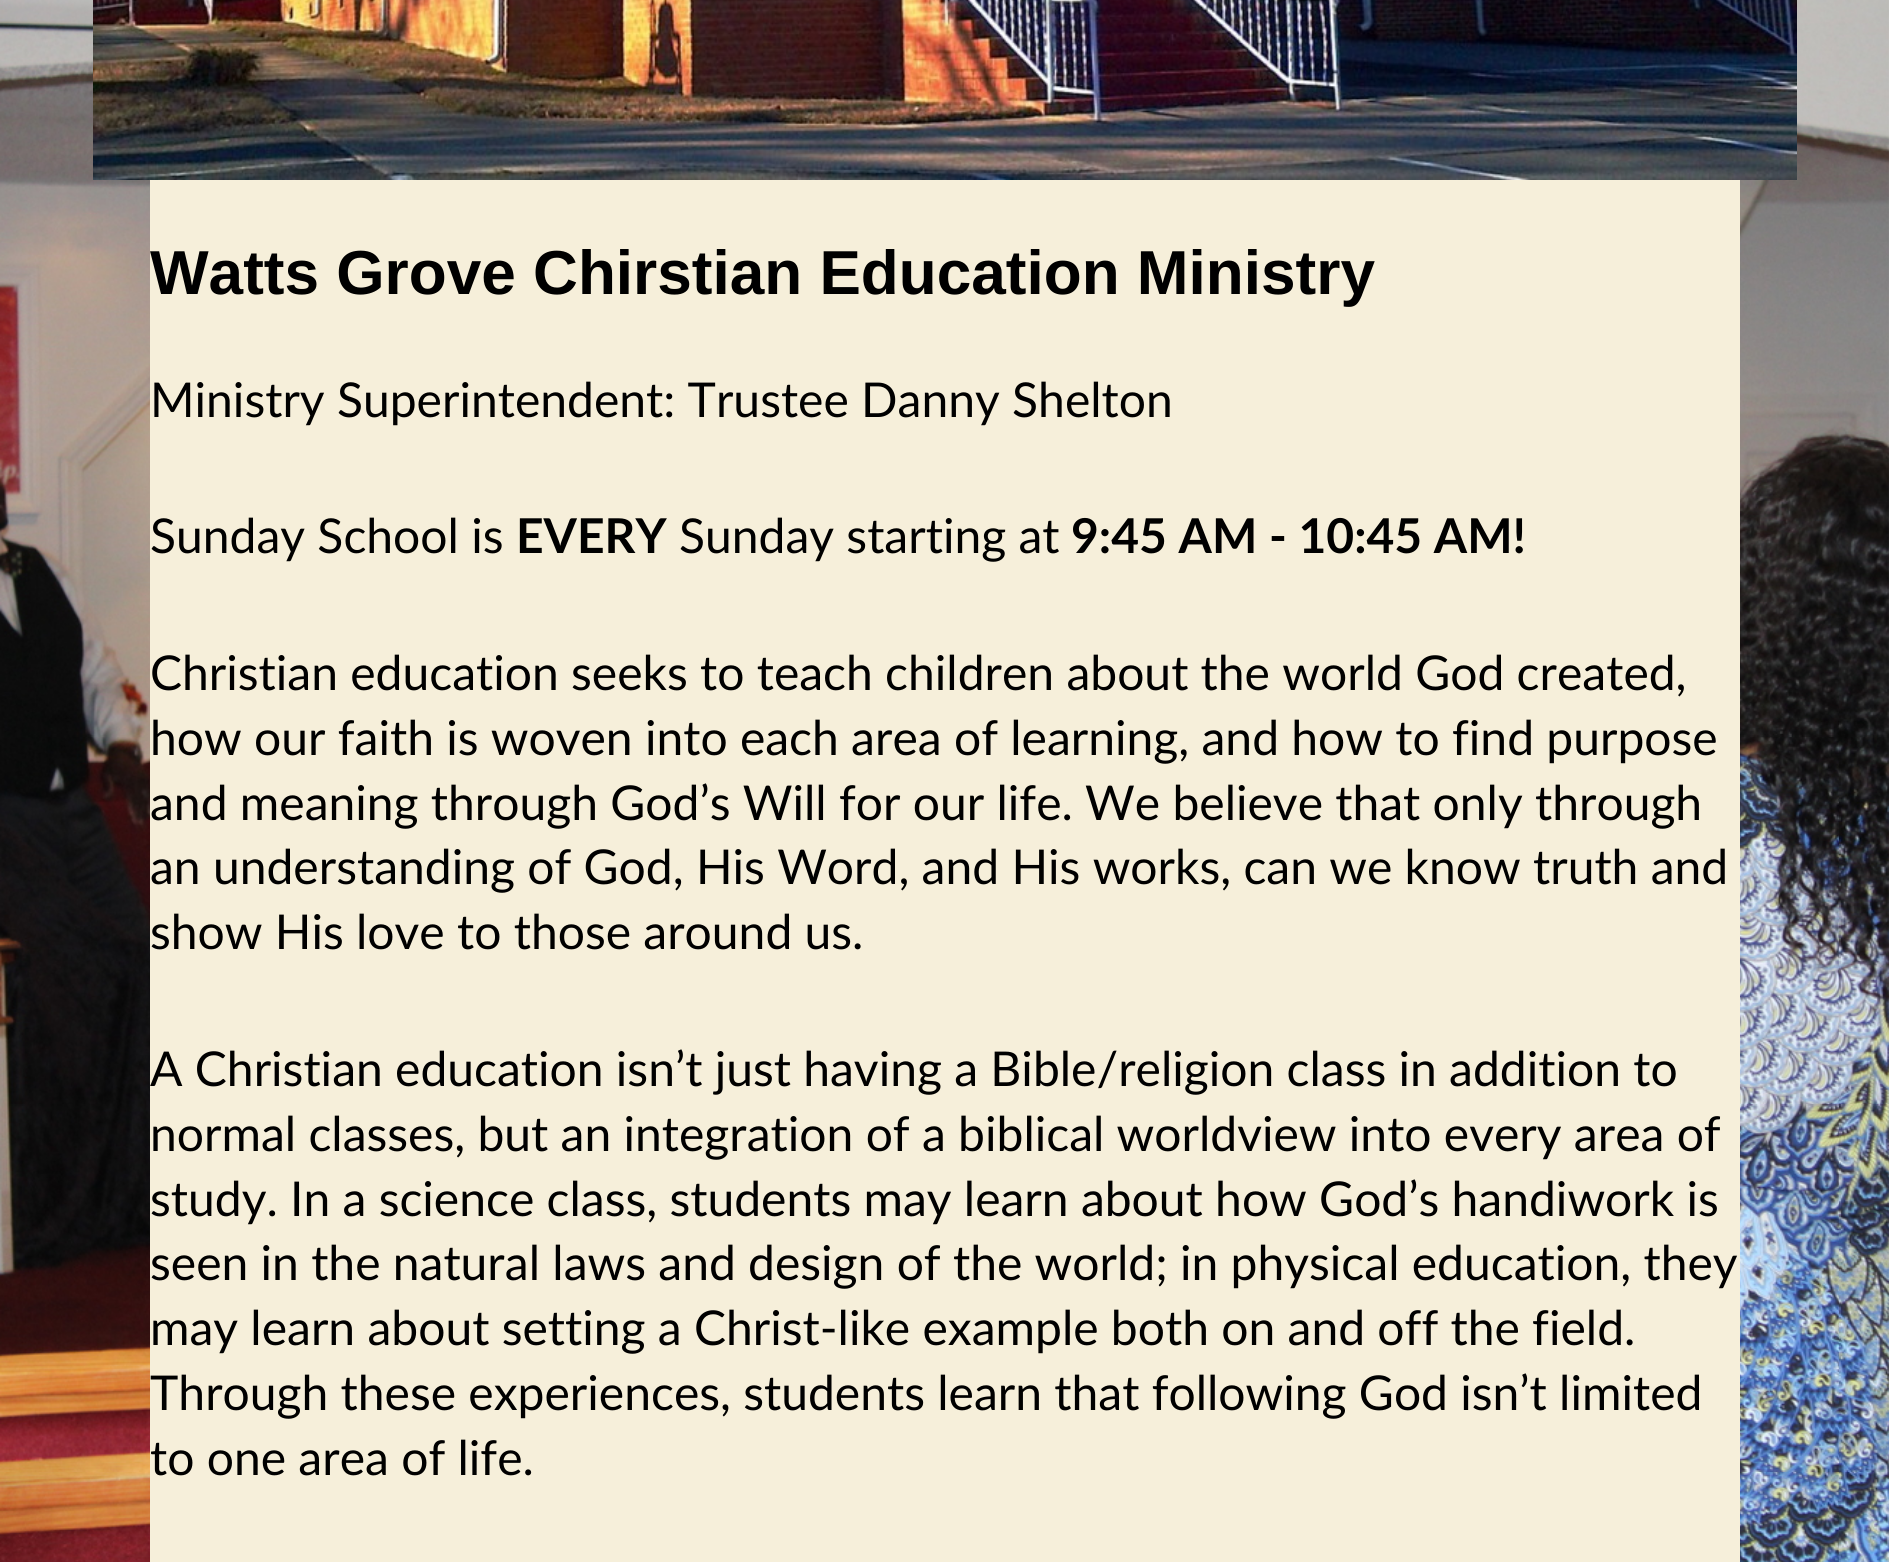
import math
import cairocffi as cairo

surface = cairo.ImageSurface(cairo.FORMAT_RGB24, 1889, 1562)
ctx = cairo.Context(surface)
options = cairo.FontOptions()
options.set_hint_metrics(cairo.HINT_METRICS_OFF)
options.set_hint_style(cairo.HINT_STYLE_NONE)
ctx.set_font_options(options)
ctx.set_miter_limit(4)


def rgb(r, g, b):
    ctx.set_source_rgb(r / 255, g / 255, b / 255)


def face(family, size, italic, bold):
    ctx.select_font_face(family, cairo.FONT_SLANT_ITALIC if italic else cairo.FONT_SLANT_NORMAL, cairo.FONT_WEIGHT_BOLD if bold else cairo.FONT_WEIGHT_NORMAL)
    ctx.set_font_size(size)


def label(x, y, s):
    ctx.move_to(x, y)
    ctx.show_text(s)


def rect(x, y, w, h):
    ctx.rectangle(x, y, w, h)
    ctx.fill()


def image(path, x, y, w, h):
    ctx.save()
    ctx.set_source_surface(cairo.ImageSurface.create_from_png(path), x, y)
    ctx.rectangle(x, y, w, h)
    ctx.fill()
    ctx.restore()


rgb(255, 255, 255)
ctx.paint()
image('image0.png', 0, 0, 1889, 1562)
image('image1.png', 93, 0, 1704, 180)
rgb(246, 239, 218)
rect(150, 180, 1590, 1382)
face('Liberation Sans', 62.1, 0, 1)
rgb(0, 0, 0)
label(150, 294, 'Watts Grove Chirstian Education Ministry')
face('Lato', 48, 0, 0)
label(150, 417, 'Ministry Superintendent: Trustee Danny Shelton')
label(150, 553, 'Sunday School is')
face('Lato', 48, 0, 1)
label(516, 553, 'EVERY')
face('Lato', 48, 0, 0)
label(679, 553, 'Sunday starting at')
face('Lato', 48, 0, 1)
label(1071, 553, '9:45 AM - 10:45 AM!')
face('Lato', 48, 0, 0)
label(150, 690, 'Christian education seeks to teach children about the world God created,')
label(150, 755, 'how our faith is woven into each area of learning, and how to find purpose')
label(150, 820, 'and meaning through God’s Will for our life. We believe that only through')
label(150, 884, 'an understanding of God, His Word, and His works, can we know truth and')
label(150, 949, 'show His love to those around us.')
label(150, 1086, 'A Christian education isn’t just having a Bible/religion class in addition to')
label(150, 1151, 'normal classes, but an integration of a biblical worldview into every area of')
label(150, 1216, 'study. In a science class, students may learn about how God’s handiwork is')
label(150, 1280, 'seen in the natural laws and design of the world; in physical education, they')
label(150, 1345, 'may learn about setting a Christ-like example both on and off the field.')
label(150, 1410, 'Through these experiences, students learn that following God isn’t limited')
label(150, 1475, 'to one area of life.')
surface.write_to_png('render.png')
